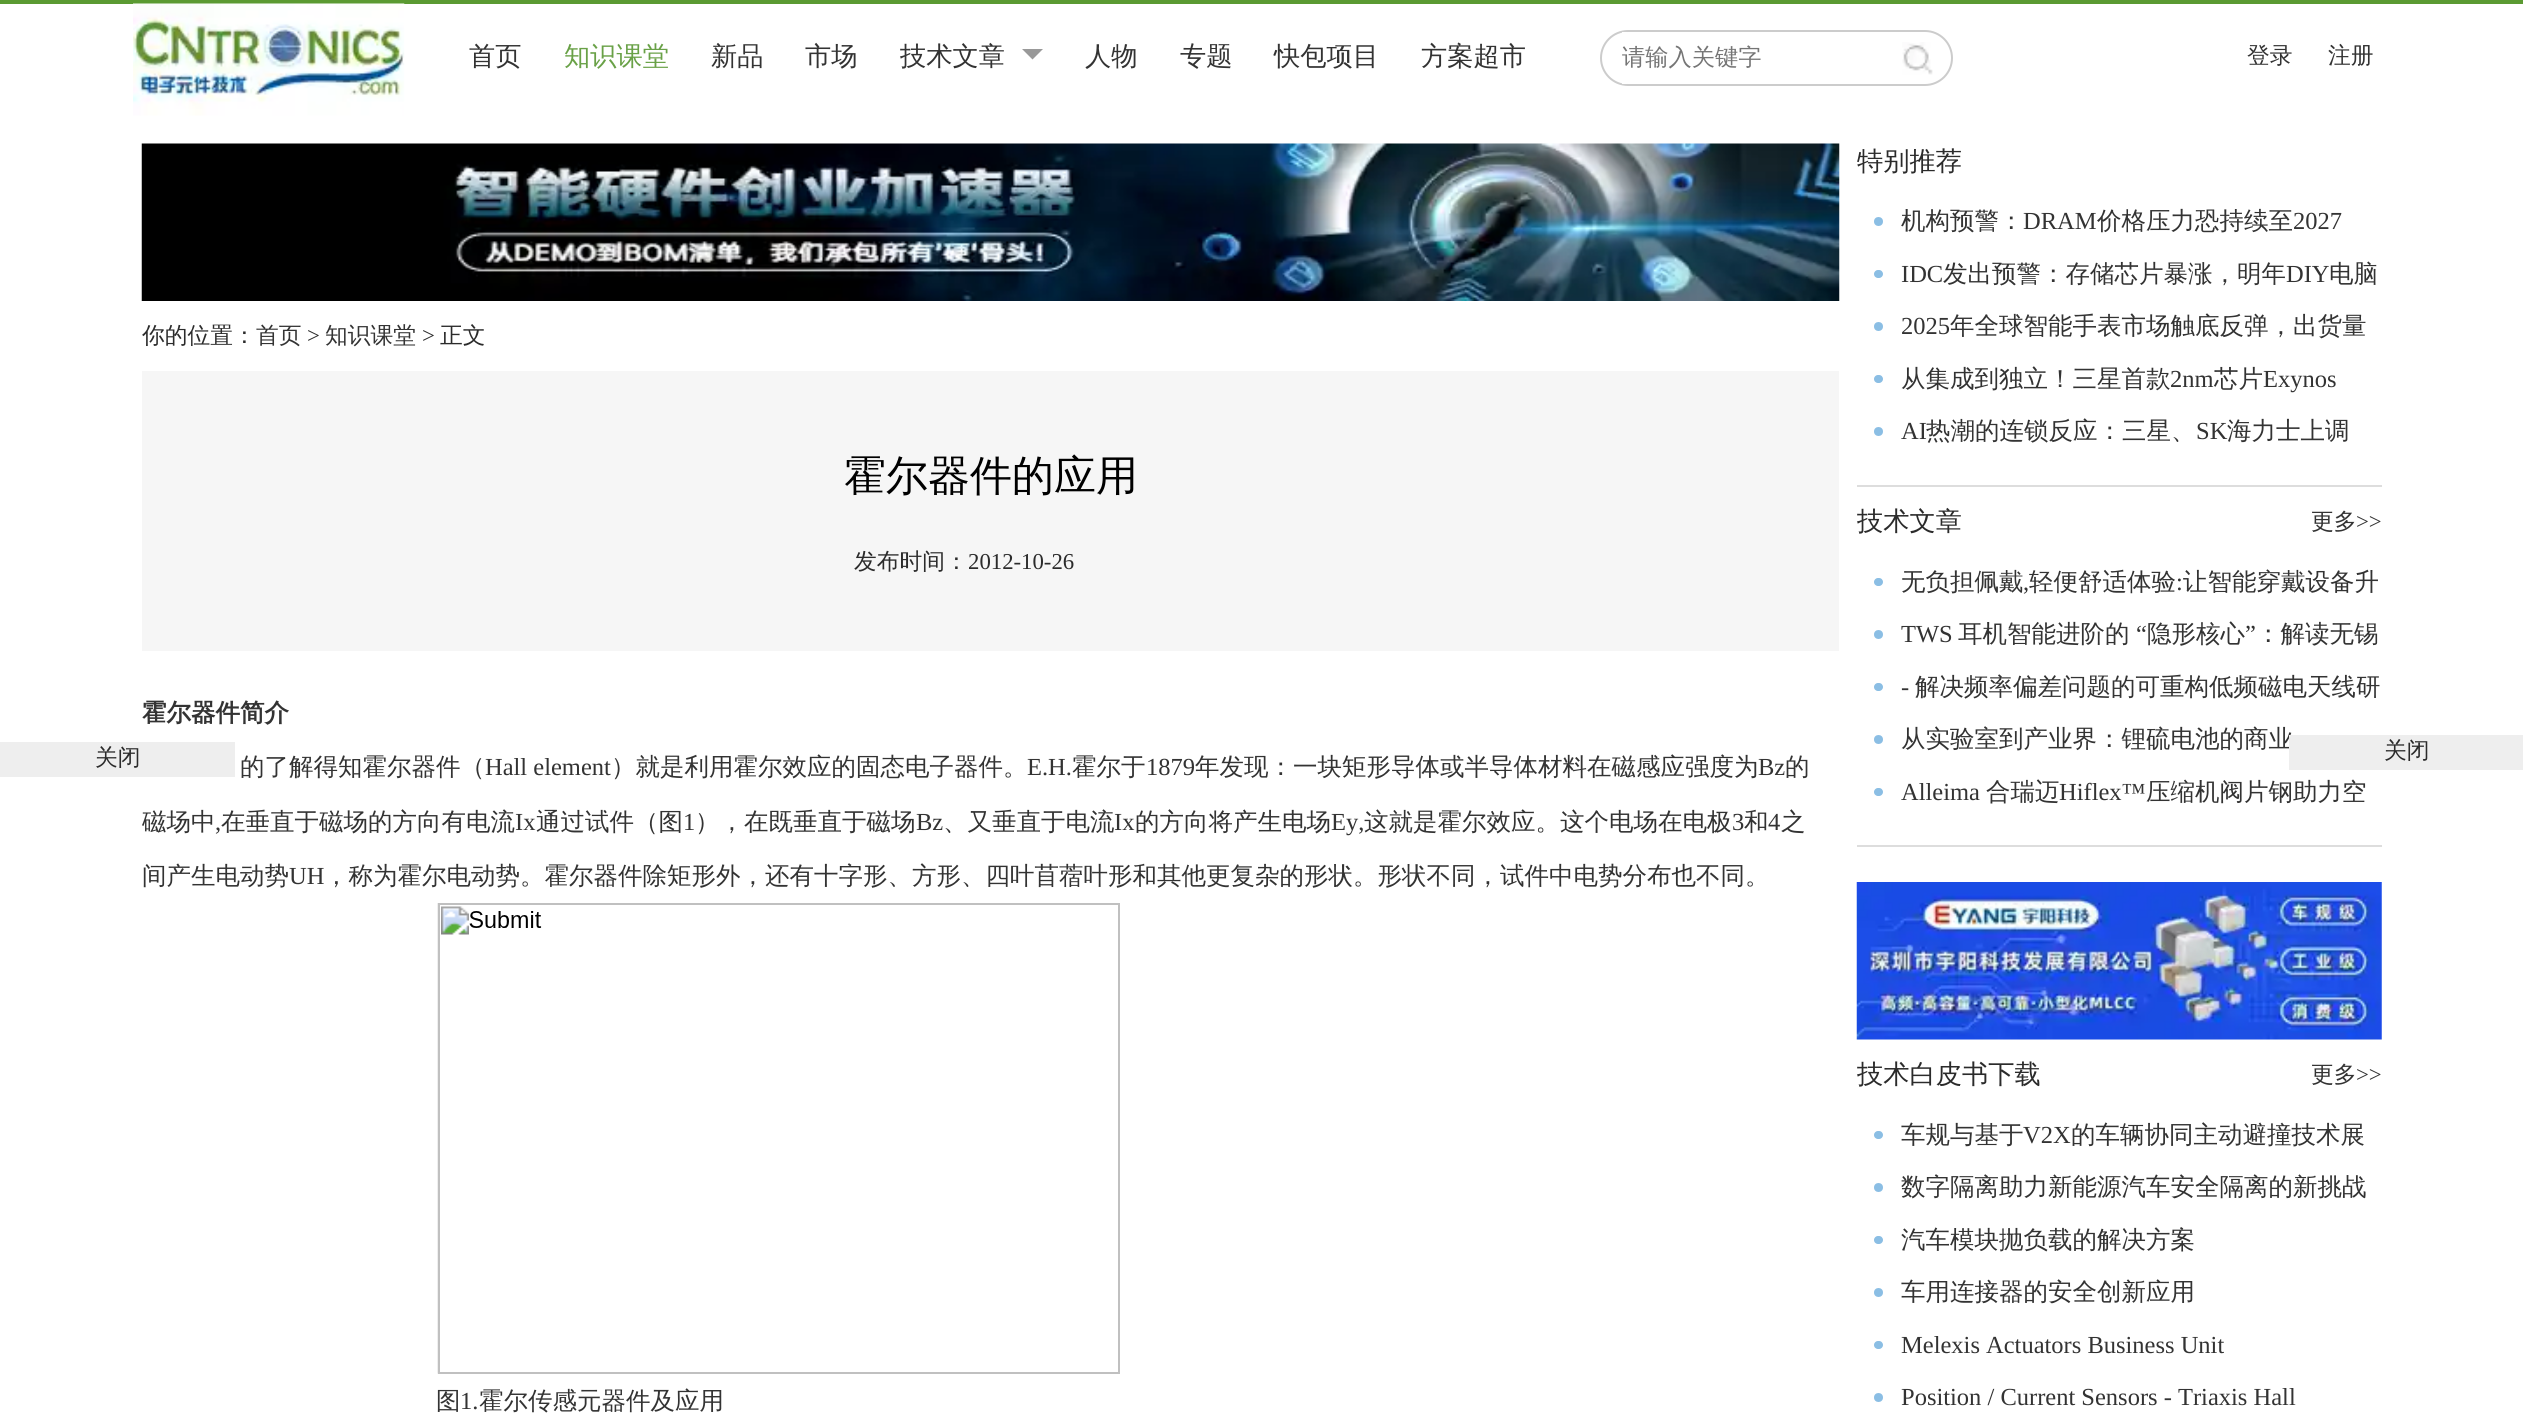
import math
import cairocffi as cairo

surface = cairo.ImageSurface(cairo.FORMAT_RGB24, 2523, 1428)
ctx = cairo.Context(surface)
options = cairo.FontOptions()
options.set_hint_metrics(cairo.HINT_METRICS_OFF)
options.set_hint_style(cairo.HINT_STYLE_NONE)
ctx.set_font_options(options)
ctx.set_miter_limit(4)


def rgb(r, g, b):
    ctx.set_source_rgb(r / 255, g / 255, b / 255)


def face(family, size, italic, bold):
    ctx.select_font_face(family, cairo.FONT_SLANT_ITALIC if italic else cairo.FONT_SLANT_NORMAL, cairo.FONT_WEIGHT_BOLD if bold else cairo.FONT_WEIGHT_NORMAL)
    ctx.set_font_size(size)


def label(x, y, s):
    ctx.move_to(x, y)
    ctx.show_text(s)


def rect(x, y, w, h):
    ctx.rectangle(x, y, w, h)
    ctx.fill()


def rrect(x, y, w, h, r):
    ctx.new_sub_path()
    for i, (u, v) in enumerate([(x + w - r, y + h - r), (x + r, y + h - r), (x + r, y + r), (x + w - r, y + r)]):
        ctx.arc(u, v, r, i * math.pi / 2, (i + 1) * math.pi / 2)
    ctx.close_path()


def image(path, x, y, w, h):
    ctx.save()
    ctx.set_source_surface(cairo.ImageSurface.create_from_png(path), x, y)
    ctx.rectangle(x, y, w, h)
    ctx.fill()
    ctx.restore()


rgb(255, 255, 255)
ctx.paint()
rgb(91, 154, 50)
rect(0, 0, 2523, 4)
image('image0.png', 133, 3, 272, 113)
face('WenQuanYi Zen Hei Medium', 26.25, 0, 0)
rgb(51, 51, 51)
label(469, 65, '首页')
rgb(105, 161, 71)
label(564, 65, '知识课堂')
rgb(51, 51, 51)
label(711, 65, '新品')
label(805, 65, '市场')
label(900, 65, '技术文章')
rgb(153, 153, 153)
ctx.new_path()
ctx.move_to(1022, 49)
ctx.line_to(1043, 49)
ctx.line_to(1032.5, 59.5)
ctx.close_path()
ctx.fill()
rgb(51, 51, 51)
label(1085, 65, '人物')
label(1180, 65, '专题')
label(1274, 65, '快包项目')
label(1421, 65, '方案超市')
rrect(1601, 31, 351, 54, 27)
rgb(204, 204, 204)
ctx.stroke()
rgb(255, 255, 255)
rect(1622, 32, 5, 52)
face('WenQuanYi Zen Hei Medium', 23.25, 0, 0)
rgb(117, 117, 117)
label(1622, 65, '请输入关键字')
image('image1.png', 1902, 42, 31, 33)
face('WenQuanYi Zen Hei Medium', 22.75, 0, 0)
rgb(51, 51, 51)
label(2247, 63, '登录')
label(2328, 63, '注册')
rgb(238, 238, 238)
rect(0, 742, 235, 35)
rgb(43, 43, 43)
label(95, 765, '关闭')
image('image2.png', 141, 143, 1699, 158)
label(142, 343, '你的位置：')
rgb(51, 51, 51)
label(256, 343, '首页')
face('Liberation Serif', 22.75, 0, 0)
rgb(43, 43, 43)
label(307, 343, '>')
face('WenQuanYi Zen Hei Medium', 22.75, 0, 0)
rgb(51, 51, 51)
label(325, 343, '知识课堂')
face('Liberation Serif', 22.75, 0, 0)
rgb(43, 43, 43)
label(422, 343, '>')
face('WenQuanYi Zen Hei Medium', 22.75, 0, 0)
label(440, 343, '正文')
rgb(246, 246, 246)
rect(142, 371, 1697, 280)
face('WenQuanYi Zen Hei Medium', 42, 0, 0)
rgb(0, 0, 0)
label(844, 490, '霍尔器件的应用')
face('WenQuanYi Zen Hei Medium', 22.75, 0, 0)
rgb(43, 43, 43)
label(854, 569, '发布时间：')
face('Liberation Serif', 22.75, 0, 0)
label(968, 569, '2012-10-26')
face('WenQuanYi Zen Hei', 24.5, 0, 1)
rgb(51, 51, 51)
label(142, 721, '霍尔器件简介')
face('WenQuanYi Zen Hei Medium', 24.5, 0, 0)
label(240, 775, '的了解得知霍尔器件（')
face('Liberation Serif', 24.5, 0, 0)
label(485, 775, 'Hall element')
face('WenQuanYi Zen Hei Medium', 24.5, 0, 0)
label(611, 775, '）就是利用霍尔效应的固态电子器件。')
face('Liberation Serif', 24.5, 0, 0)
label(1027, 775, 'E.H.')
face('WenQuanYi Zen Hei Medium', 24.5, 0, 0)
label(1072, 775, '霍尔于')
face('Liberation Serif', 24.5, 0, 0)
label(1146, 775, '1879')
face('WenQuanYi Zen Hei Medium', 24.5, 0, 0)
label(1195, 775, '年发现：一块矩形导体或半导体材料在磁感应强度为')
face('Liberation Serif', 24.5, 0, 0)
label(1758, 775, 'Bz')
face('WenQuanYi Zen Hei Medium', 24.5, 0, 0)
label(1785, 775, '的')
label(142, 830, '磁场中')
face('Liberation Serif', 24.5, 0, 0)
label(215, 830, ',')
face('WenQuanYi Zen Hei Medium', 24.5, 0, 0)
label(221, 830, '在垂直于磁场的方向有电流')
face('Liberation Serif', 24.5, 0, 0)
label(515, 830, 'Ix')
face('WenQuanYi Zen Hei Medium', 24.5, 0, 0)
label(536, 830, '通过试件（图')
face('Liberation Serif', 24.5, 0, 0)
label(683, 830, '1')
face('WenQuanYi Zen Hei Medium', 24.5, 0, 0)
label(695, 830, '），在既垂直于磁场')
face('Liberation Serif', 24.5, 0, 0)
label(916, 830, 'Bz')
face('WenQuanYi Zen Hei Medium', 24.5, 0, 0)
label(943, 830, '、又垂直于电流')
face('Liberation Serif', 24.5, 0, 0)
label(1114, 830, 'Ix')
face('WenQuanYi Zen Hei Medium', 24.5, 0, 0)
label(1135, 830, '的方向将产生电场')
face('Liberation Serif', 24.5, 0, 0)
label(1331, 830, 'Ey,')
face('WenQuanYi Zen Hei Medium', 24.5, 0, 0)
label(1364, 830, '这就是霍尔效应。这个电场在电极')
face('Liberation Serif', 24.5, 0, 0)
label(1732, 830, '3')
face('WenQuanYi Zen Hei Medium', 24.5, 0, 0)
label(1744, 830, '和')
face('Liberation Serif', 24.5, 0, 0)
label(1768, 830, '4')
face('WenQuanYi Zen Hei Medium', 24.5, 0, 0)
label(1781, 830, '之')
label(142, 884, '间产生电动势')
face('Liberation Serif', 24.5, 0, 0)
label(289, 884, 'UH')
face('WenQuanYi Zen Hei Medium', 24.5, 0, 0)
label(324, 884, '，称为霍尔电动势。霍尔器件除矩形外，还有十字形、方形、四叶苜蓿叶形和其他更复杂的形状。形状不同，试件中电势分布也不同。')
image('image3.png', 437, 903, 105, 471)
ctx.rectangle(439, 904, 680, 469)
rgb(192, 192, 192)
ctx.stroke()
rgb(51, 51, 51)
label(436, 1409, '图')
face('Liberation Serif', 24.5, 0, 0)
label(460, 1409, '1.')
face('WenQuanYi Zen Hei Medium', 24.5, 0, 0)
label(479, 1409, '霍尔传感元器件及应用')
face('WenQuanYi Zen Hei Medium', 26.25, 0, 0)
rgb(43, 43, 43)
label(1857, 170, '特别推荐')
rgb(221, 221, 221)
rect(1857, 485, 525, 2)
rgb(139, 190, 228)
ctx.new_path()
ctx.arc(1878.5, 221.5, 4.5, 0, 2 * math.pi)
ctx.fill()
face('WenQuanYi Zen Hei Medium', 24.5, 0, 0)
rgb(51, 51, 51)
label(1901, 229, '机构预警：')
face('Liberation Serif', 24.5, 0, 0)
label(2023, 229, 'DRAM')
face('WenQuanYi Zen Hei Medium', 24.5, 0, 0)
label(2097, 229, '价格压力恐持续至')
face('Liberation Serif', 24.5, 0, 0)
label(2293, 229, '2027')
rgb(139, 190, 228)
rrect(1874, 270, 9, 8, 4)
ctx.fill()
rgb(51, 51, 51)
label(1901, 282, 'IDC')
face('WenQuanYi Zen Hei Medium', 24.5, 0, 0)
label(1943, 282, '发出预警：存储芯片暴涨，明年')
face('Liberation Serif', 24.5, 0, 0)
label(2286, 282, 'DIY')
face('WenQuanYi Zen Hei Medium', 24.5, 0, 0)
label(2329, 282, '电脑')
rgb(139, 190, 228)
ctx.new_path()
ctx.arc(1878.5, 326.5, 4.5, 0, 2 * math.pi)
ctx.fill()
face('Liberation Serif', 24.5, 0, 0)
rgb(51, 51, 51)
label(1901, 334, '2025')
face('WenQuanYi Zen Hei Medium', 24.5, 0, 0)
label(1950, 334, '年全球智能手表市场触底反弹，出货量')
rgb(139, 190, 228)
rrect(1874, 375, 9, 8, 4)
ctx.fill()
rgb(51, 51, 51)
label(1901, 387, '从集成到独立！三星首款')
face('Liberation Serif', 24.5, 0, 0)
label(2170, 387, '2nm')
face('WenQuanYi Zen Hei Medium', 24.5, 0, 0)
label(2214, 387, '芯片')
face('Liberation Serif', 24.5, 0, 0)
label(2263, 387, 'Exynos')
rgb(139, 190, 228)
ctx.new_path()
ctx.arc(1878.5, 431.5, 4.5, 0, 2 * math.pi)
ctx.fill()
rgb(51, 51, 51)
label(1901, 439, 'AI')
face('WenQuanYi Zen Hei Medium', 24.5, 0, 0)
label(1926, 439, '热潮的连锁反应：三星、')
face('Liberation Serif', 24.5, 0, 0)
label(2196, 439, 'SK')
face('WenQuanYi Zen Hei Medium', 24.5, 0, 0)
label(2227, 439, '海力士上调')
face('WenQuanYi Zen Hei Medium', 26.25, 0, 0)
rgb(43, 43, 43)
label(1857, 530, '技术文章')
face('WenQuanYi Zen Hei Medium', 22.75, 0, 0)
rgb(51, 51, 51)
label(2311, 529, '更多')
face('Liberation Serif', 22.75, 0, 0)
label(2356, 529, '>>')
rgb(221, 221, 221)
rect(1857, 845, 525, 2)
rgb(139, 190, 228)
rrect(1874, 578, 9, 8, 4)
ctx.fill()
face('WenQuanYi Zen Hei Medium', 24.5, 0, 0)
rgb(51, 51, 51)
label(1901, 590, '无负担佩戴')
face('Liberation Serif', 24.5, 0, 0)
label(2023, 590, ',')
face('WenQuanYi Zen Hei Medium', 24.5, 0, 0)
label(2029, 590, '轻便舒适体验')
face('Liberation Serif', 24.5, 0, 0)
label(2176, 590, ':')
face('WenQuanYi Zen Hei Medium', 24.5, 0, 0)
label(2183, 590, '让智能穿戴设备升')
face('Liberation Serif', 24.5, 0, 0)
label(1901, 642, 'TWS')
face('WenQuanYi Zen Hei Medium', 24.5, 0, 0)
label(1958, 642, '耳机智能进阶的')
face('Liberation Serif', 24.5, 0, 0)
label(2136, 642, '“')
face('WenQuanYi Zen Hei Medium', 24.5, 0, 0)
label(2147, 642, '隐形核心')
face('Liberation Serif', 24.5, 0, 0)
label(2245, 642, '”')
face('WenQuanYi Zen Hei Medium', 24.5, 0, 0)
label(2256, 642, '：解读无锡')
rgb(139, 190, 228)
ctx.new_path()
ctx.arc(1878.5, 634.5, 4.5, 0, 2 * math.pi)
ctx.fill()
rrect(1874, 683, 9, 8, 4)
ctx.fill()
face('Liberation Serif', 24.5, 0, 0)
rgb(51, 51, 51)
label(1901, 695, '-')
face('WenQuanYi Zen Hei Medium', 24.5, 0, 0)
label(1915, 695, '解决频率偏差问题的可重构低频磁电天线研')
rgb(139, 190, 228)
ctx.new_path()
ctx.arc(1878.5, 739.5, 4.5, 0, 2 * math.pi)
ctx.fill()
rgb(51, 51, 51)
label(1901, 747, '从实验室到产业界：锂硫电池的商业')
rgb(139, 190, 228)
rrect(1874, 788, 9, 8, 4)
ctx.fill()
face('Liberation Serif', 24.5, 0, 0)
rgb(51, 51, 51)
label(1901, 800, 'Alleima')
face('WenQuanYi Zen Hei Medium', 24.5, 0, 0)
label(1986, 800, '合瑞迈')
face('Liberation Serif', 24.5, 0, 0)
label(2059, 800, 'Hiflex™')
face('WenQuanYi Zen Hei Medium', 24.5, 0, 0)
label(2146, 800, '压缩机阀片钢助力空')
image('image4.png', 1856, 882, 526, 158)
face('WenQuanYi Zen Hei Medium', 26.25, 0, 0)
rgb(43, 43, 43)
label(1857, 1083, '技术白皮书下载')
face('WenQuanYi Zen Hei Medium', 22.75, 0, 0)
rgb(51, 51, 51)
label(2311, 1082, '更多')
face('Liberation Serif', 22.75, 0, 0)
label(2356, 1082, '>>')
rgb(139, 190, 228)
rrect(1874, 1131, 9, 8, 4)
ctx.fill()
face('WenQuanYi Zen Hei Medium', 24.5, 0, 0)
rgb(51, 51, 51)
label(1901, 1143, '车规与基于')
face('Liberation Serif', 24.5, 0, 0)
label(2023, 1143, 'V2X')
face('WenQuanYi Zen Hei Medium', 24.5, 0, 0)
label(2071, 1143, '的车辆协同主动避撞技术展')
rgb(139, 190, 228)
ctx.new_path()
ctx.arc(1878.5, 1187.5, 4.5, 0, 2 * math.pi)
ctx.fill()
rgb(51, 51, 51)
label(1901, 1195, '数字隔离助力新能源汽车安全隔离的新挑战')
rgb(139, 190, 228)
rrect(1874, 1236, 9, 8, 4)
ctx.fill()
rgb(51, 51, 51)
label(1901, 1248, '汽车模块抛负载的解决方案')
rgb(139, 190, 228)
ctx.new_path()
ctx.arc(1878.5, 1292.5, 4.5, 0, 2 * math.pi)
ctx.fill()
rgb(51, 51, 51)
label(1901, 1300, '车用连接器的安全创新应用')
rgb(139, 190, 228)
rrect(1874, 1341, 9, 8, 4)
ctx.fill()
face('Liberation Serif', 24.5, 0, 0)
rgb(51, 51, 51)
label(1901, 1353, 'Melexis Actuators Business Unit')
rgb(139, 190, 228)
ctx.new_path()
ctx.arc(1878.5, 1397.5, 4.5, 0, 2 * math.pi)
ctx.fill()
rgb(51, 51, 51)
label(1901, 1405, 'Position / Current Sensors - Triaxis Hall')
rgb(238, 238, 238)
rect(2289, 735, 234, 35)
face('WenQuanYi Zen Hei Medium', 22.75, 0, 0)
rgb(43, 43, 43)
label(2384, 758, '关闭')
surface.write_to_png('render.png')
